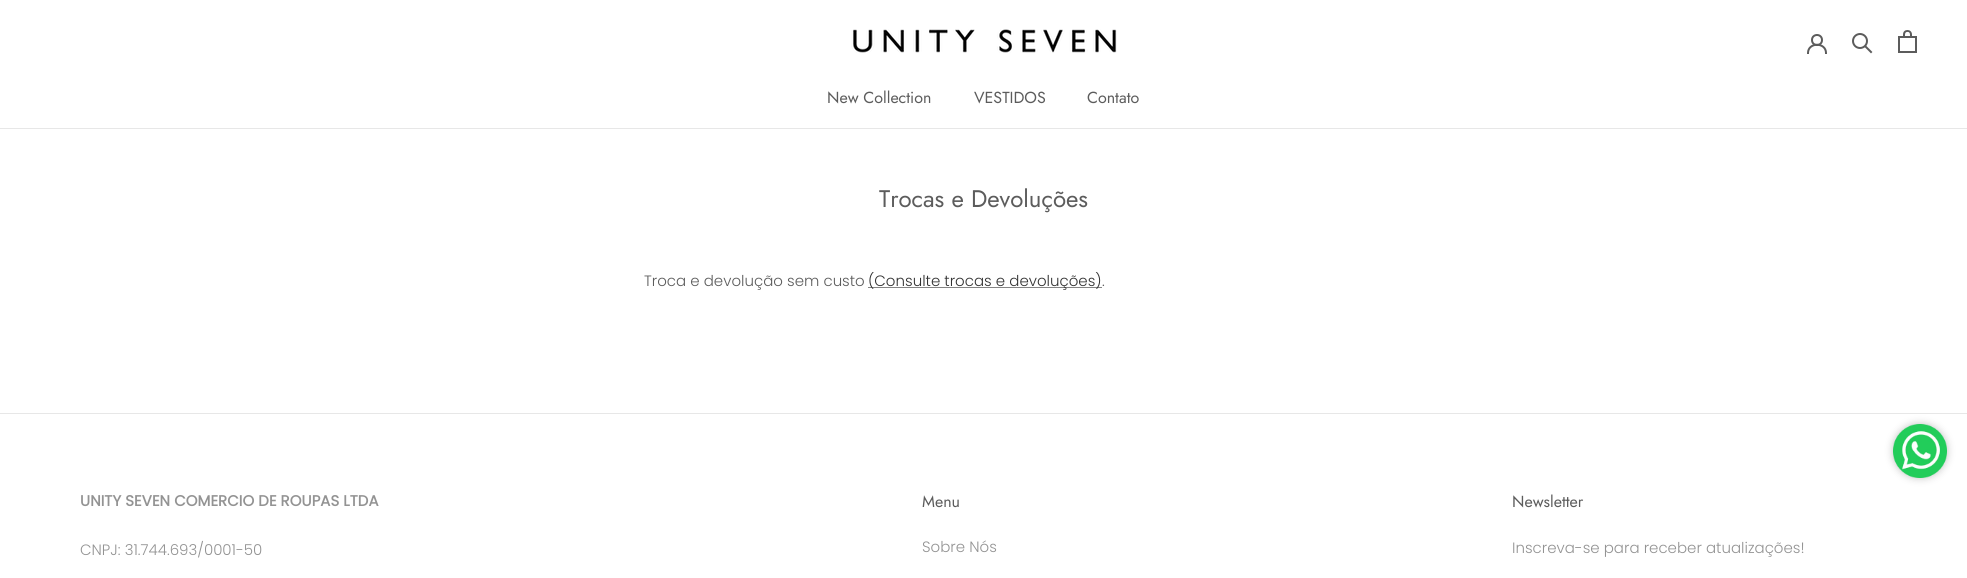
import math
import cairocffi as cairo

surface = cairo.ImageSurface(cairo.FORMAT_RGB24, 1967, 578)
ctx = cairo.Context(surface)
options = cairo.FontOptions()
options.set_hint_metrics(cairo.HINT_METRICS_OFF)
options.set_hint_style(cairo.HINT_STYLE_NONE)
ctx.set_font_options(options)
ctx.set_miter_limit(4)


def rgb(r, g, b):
    ctx.set_source_rgb(r / 255, g / 255, b / 255)


def face(family, size, italic, bold):
    ctx.select_font_face(family, cairo.FONT_SLANT_ITALIC if italic else cairo.FONT_SLANT_NORMAL, cairo.FONT_WEIGHT_BOLD if bold else cairo.FONT_WEIGHT_NORMAL)
    ctx.set_font_size(size)


def label(x, y, s):
    ctx.move_to(x, y)
    ctx.show_text(s)


def rect(x, y, w, h):
    ctx.rectangle(x, y, w, h)
    ctx.fill()


def rrect(x, y, w, h, r):
    ctx.new_sub_path()
    for i, (u, v) in enumerate([(x + w - r, y + h - r), (x + r, y + h - r), (x + r, y + r), (x + w - r, y + r)]):
        ctx.arc(u, v, r, i * math.pi / 2, (i + 1) * math.pi / 2)
    ctx.close_path()


def soft_shadow(x, y, w, h, r, blur, alpha):
    ctx.push_group_with_content(cairo.CONTENT_ALPHA)
    ctx.set_operator(cairo.OPERATOR_SOURCE)
    for i in range(15, -16, -2):
        e = blur * i / 6
        if min(w, h) + 2 * e > 0:
            ctx.set_source_rgba(0, 0, 0, alpha * math.erfc((i - 1) / 8.5) / 2)
            rrect(x - e, y - e, w + 2 * e, h + 2 * e, max(0, min(r + e + blur * .6, min(w, h) / 2 + e)))
            ctx.fill()
    ctx.mask(ctx.pop_group())


def image(path, x, y, w, h):
    ctx.save()
    ctx.set_source_surface(cairo.ImageSurface.create_from_png(path), x, y)
    ctx.rectangle(x, y, w, h)
    ctx.fill()
    ctx.restore()


rgb(255, 255, 255)
ctx.paint()
rgb(231, 231, 231)
rect(0, 128, 1967, 1)
image('image0.png', 851, 29, 266, 24)
ctx.new_path()
ctx.move_to(1808, 53)
ctx.curve_to(1808, 42, 1826, 42, 1826, 53)
rgb(92, 92, 92)
ctx.set_line_cap(cairo.LINE_CAP_SQUARE)
ctx.stroke()
ctx.arc(1817, 40, 5, 0, 2 * math.pi)
ctx.set_line_cap(cairo.LINE_CAP_BUTT)
ctx.stroke()
ctx.new_path()
ctx.move_to(1871, 52)
ctx.line_to(1865.5, 46.5)
ctx.set_line_cap(cairo.LINE_CAP_SQUARE)
ctx.stroke()
ctx.arc(1860, 41, 7, 0, 2 * math.pi)
ctx.set_line_cap(cairo.LINE_CAP_BUTT)
ctx.stroke()
image('image1.png', 1898, 30, 19, 23)
face('Jost', 16, 0, 0)
label(827, 103, 'New Collection')
label(974, 103, 'VESTIDOS')
label(1087, 103, 'Contato')
face('Jost', 24, 0, 0)
label(879, 207, 'Trocas e Devoluções')
face('Poppins Light', 15, 0, 0)
label(644, 286, 'Troca e devolução sem custo')
rgb(132, 132, 132)
rect(868, 287, 234, 1)
rgb(50, 50, 50)
label(868, 286, '(Consulte trocas e devoluções)')
rgb(92, 92, 92)
label(1102, 286, '.')
rgb(231, 231, 231)
rect(0, 413, 1967, 1)
face('Poppins', 15, 0, 1)
rgb(147, 147, 147)
label(80, 506, 'UNITY SEVEN COMERCIO DE ROUPAS LTDA')
face('Poppins Light', 15, 0, 0)
label(80, 555, 'CNPJ: 31.744.693/0001-50')
face('Jost', 16, 0, 0)
rgb(92, 92, 92)
label(922, 507, 'Menu')
face('Poppins Light', 15, 0, 0)
rgb(147, 147, 147)
label(922, 552, 'Sobre Nós')
face('Jost', 16, 0, 0)
rgb(92, 92, 92)
label(1512, 507, 'Newsletter')
face('Poppins Light', 15, 0, 0)
rgb(147, 147, 147)
label(1512, 553, 'Inscreva-se para receber atualizações!')
rgb(194, 194, 194)
soft_shadow(1893, 424, 54, 54, 27, 4, 1)
image('image2.png', 1893, 424, 54, 54)
surface.write_to_png('render.png')
